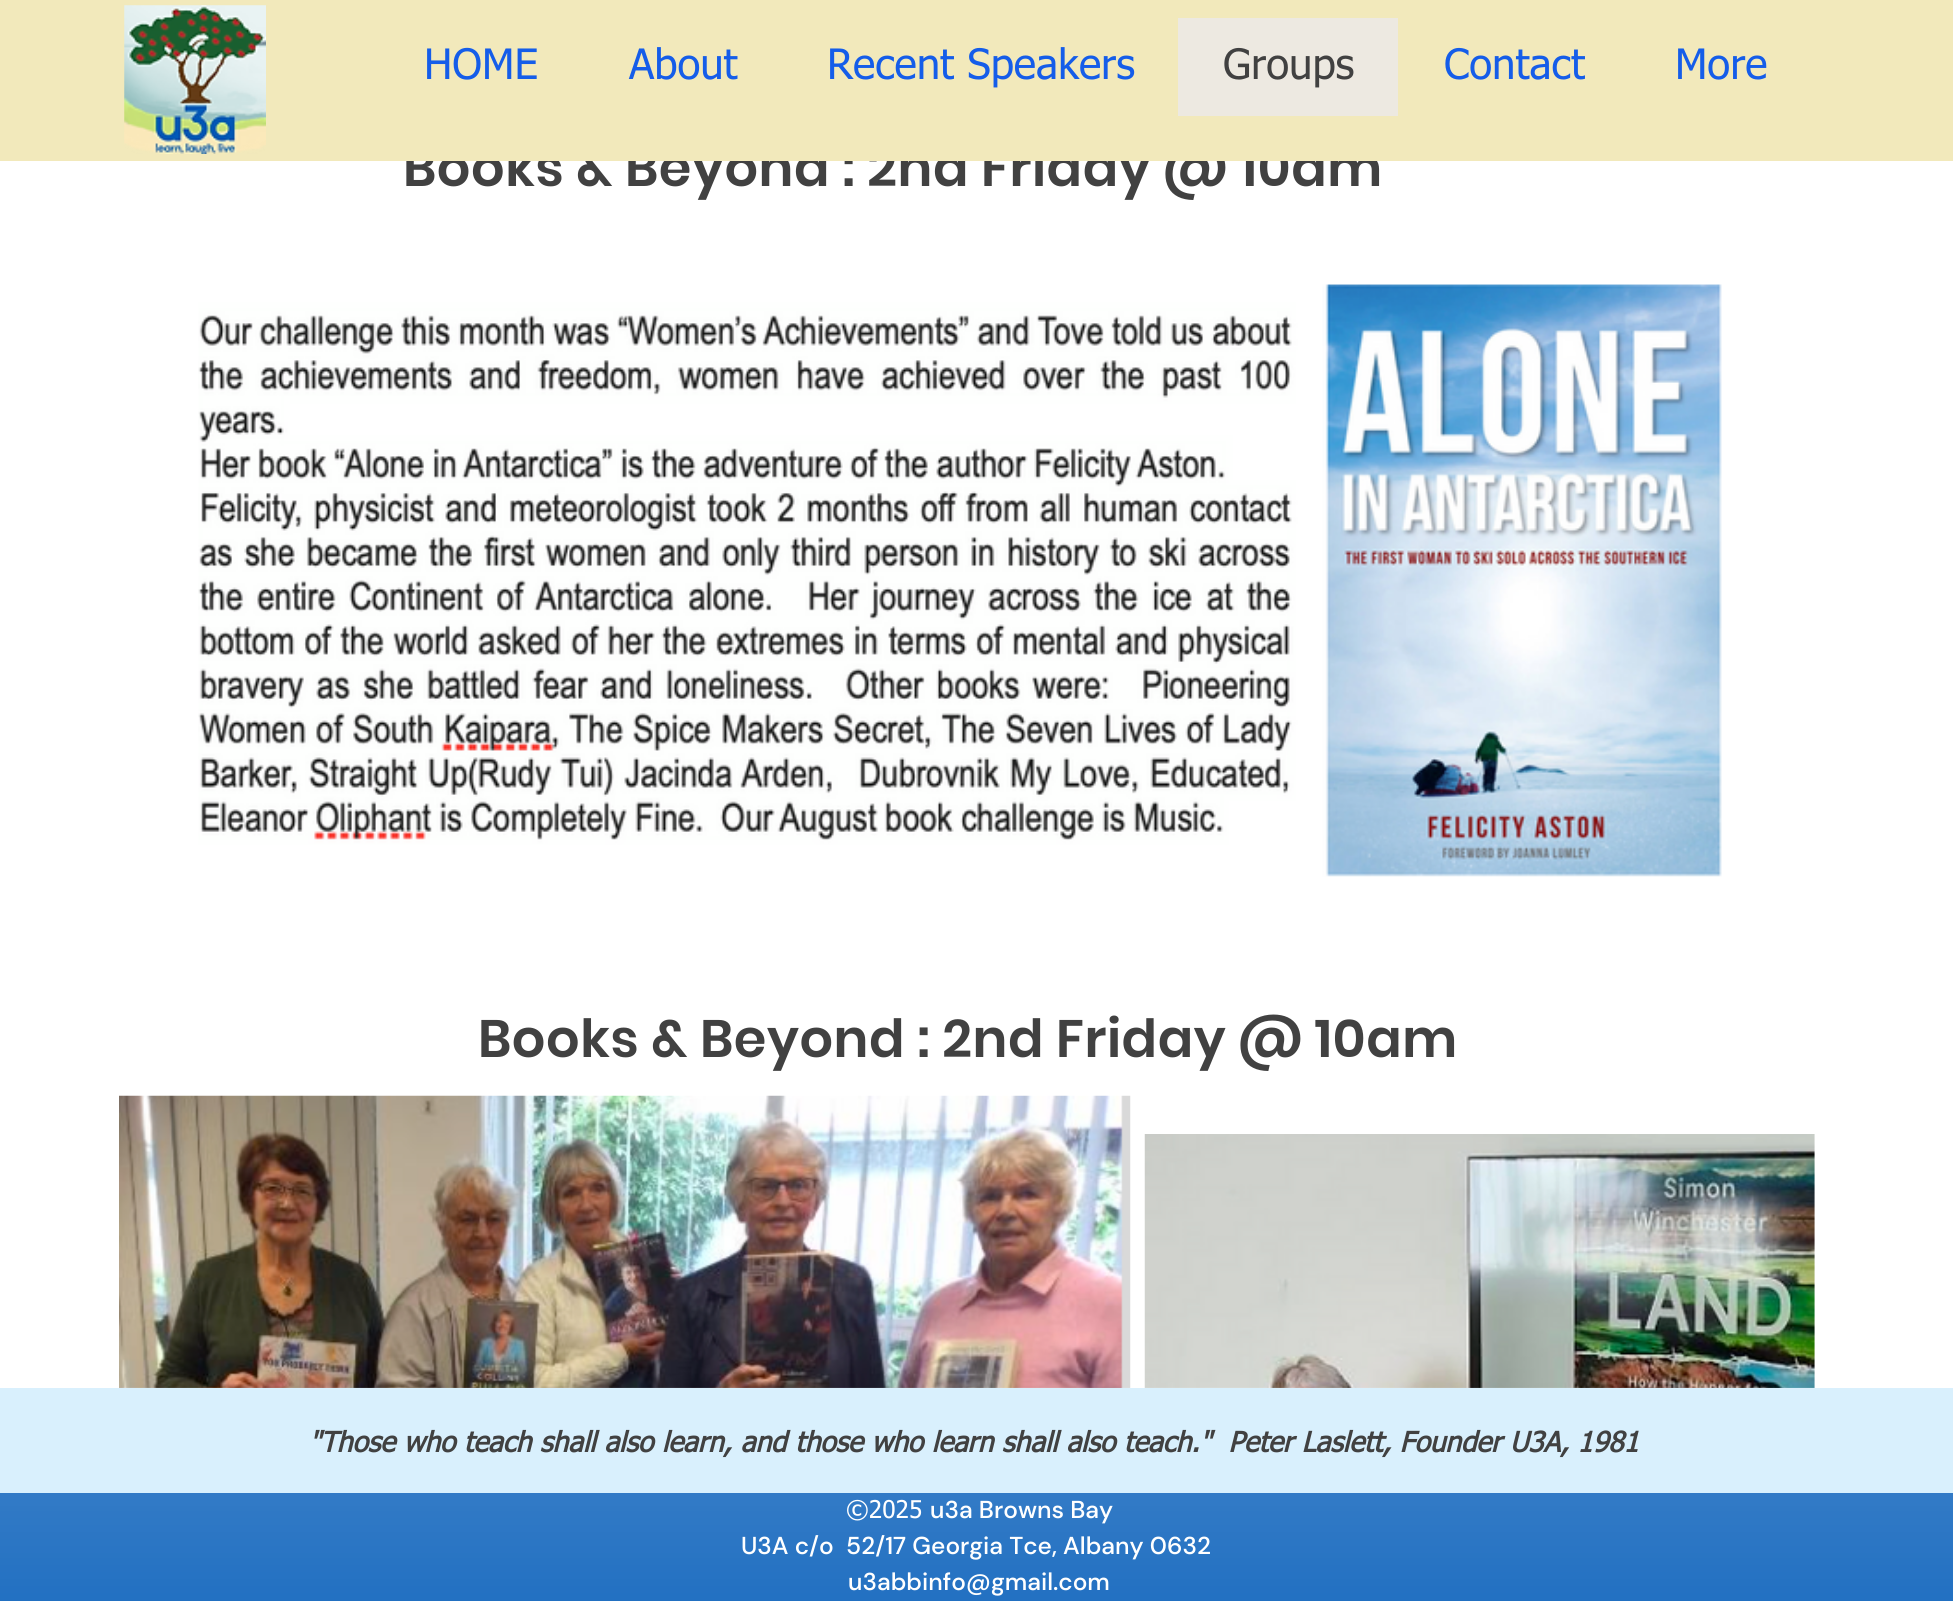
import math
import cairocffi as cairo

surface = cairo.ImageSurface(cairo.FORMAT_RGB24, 1953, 1601)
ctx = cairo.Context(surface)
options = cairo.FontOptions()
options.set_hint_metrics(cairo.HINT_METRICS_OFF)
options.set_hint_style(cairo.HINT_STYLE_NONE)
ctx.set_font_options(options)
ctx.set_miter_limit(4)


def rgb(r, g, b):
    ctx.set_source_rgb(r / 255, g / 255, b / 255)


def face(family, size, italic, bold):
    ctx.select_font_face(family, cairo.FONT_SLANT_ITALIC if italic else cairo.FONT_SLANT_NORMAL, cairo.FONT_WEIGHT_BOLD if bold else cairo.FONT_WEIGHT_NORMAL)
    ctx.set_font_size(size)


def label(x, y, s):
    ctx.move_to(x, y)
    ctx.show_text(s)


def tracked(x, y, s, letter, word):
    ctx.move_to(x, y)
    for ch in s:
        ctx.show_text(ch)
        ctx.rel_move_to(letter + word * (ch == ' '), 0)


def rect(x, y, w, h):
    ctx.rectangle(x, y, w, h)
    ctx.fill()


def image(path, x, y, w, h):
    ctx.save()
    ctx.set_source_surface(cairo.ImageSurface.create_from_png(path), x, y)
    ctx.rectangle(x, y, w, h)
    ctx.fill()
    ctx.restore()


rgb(255, 255, 255)
ctx.paint()
face('Poppins SemiBold', 52.5, 0, 0)
rgb(65, 65, 65)
tracked(403, 186, 'Books & Beyond : 2nd Friday @ 10am', 0.55, 0)
rgb(242, 233, 187)
rect(0, 0, 1953, 161)
image('image0.png', 124, 5, 142, 149)
face('tahoma', 42, 0, 0)
rgb(21, 93, 233)
label(424, 79, 'HOME')
label(629, 79, 'About')
label(827, 79, 'Recent Speakers')
rgb(237, 233, 225)
rect(1178, 18, 220, 98)
rgb(65, 65, 65)
label(1223, 79, 'Groups')
rgb(21, 93, 233)
label(1444, 79, 'Contact')
label(1675, 79, 'More')
image('image1.png', 198, 284, 1524, 593)
face('Poppins SemiBold', 52.5, 0, 0)
rgb(65, 65, 65)
tracked(478, 1057, 'Books & Beyond : 2nd Friday @ 10am', 0.55, 0)
image('image2.png', 119, 1095, 1012, 293)
image('image3.png', 1144, 1134, 671, 254)
rgb(0, 90, 184)
rect(0, 1493, 1953, 108)
image('image4.png', 0, 1387, 1953, 214)
rgb(217, 240, 253)
rect(0, 1388, 1953, 105)
face('tahoma', 28, 1, 1)
rgb(65, 65, 65)
label(309, 1452, '"Those who teach shall also learn, and those who learn shall also teach."  Peter Laslett, Founder U3A, 1981')
face('tahoma', 24.5, 0, 0)
rgb(255, 255, 255)
label(846, 1518, '©2025')
face('DM Sans Medium', 24.5, 0, 0)
label(930, 1518, 'u3a Browns Bay')
label(741, 1554, 'U3A c/o  52/17 Georgia Tce, Albany 0632')
label(848, 1590, 'u3abbinfo@gmail.com')
surface.write_to_png('render.png')
